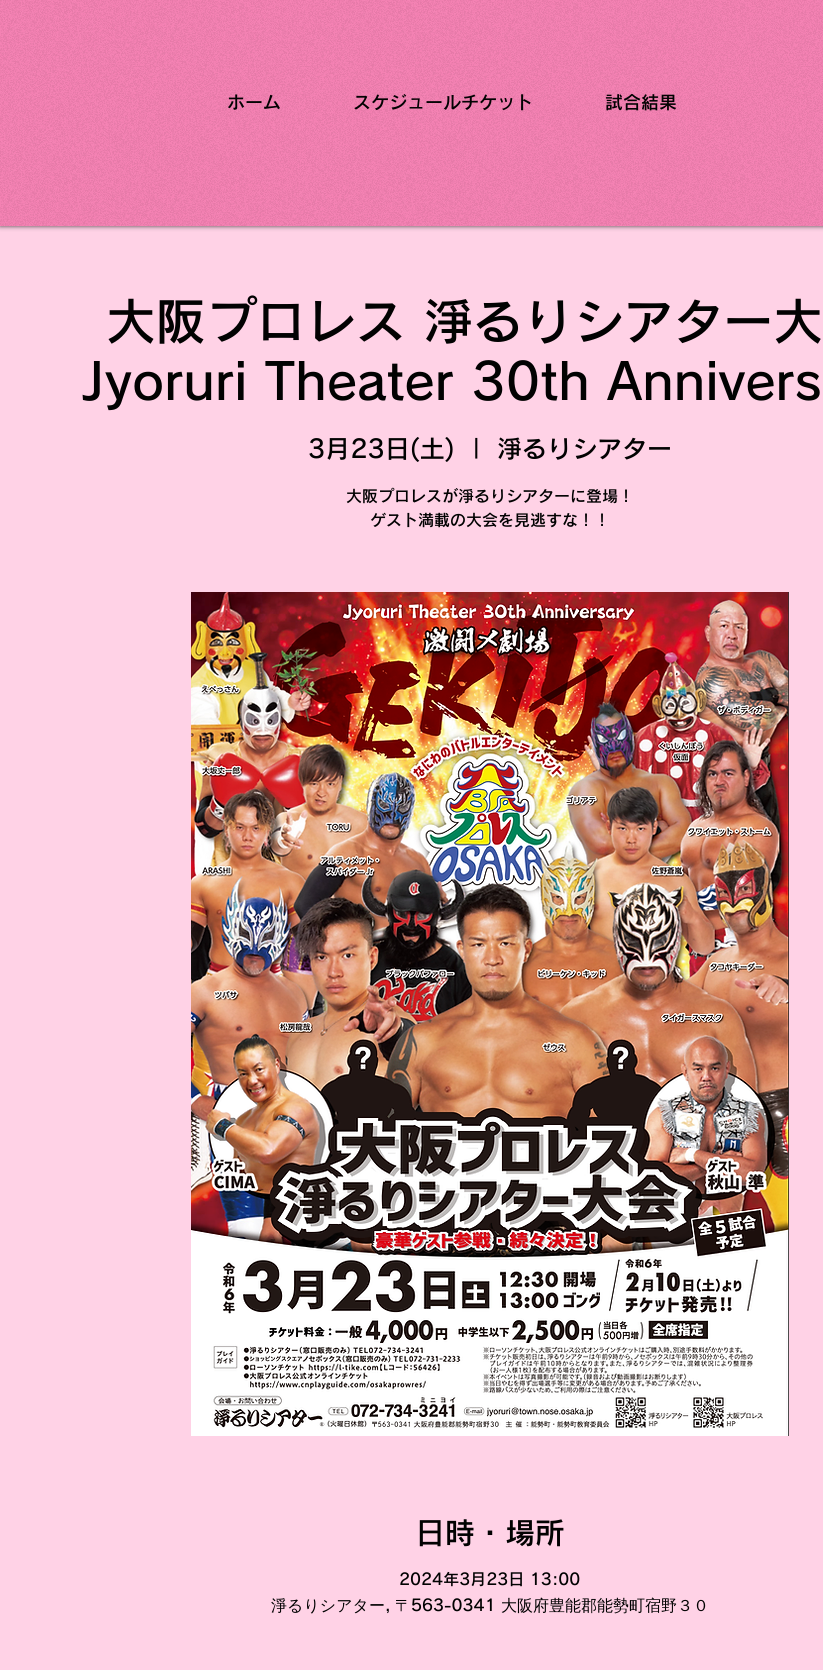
import math
import cairocffi as cairo

surface = cairo.ImageSurface(cairo.FORMAT_RGB24, 823, 1670)
ctx = cairo.Context(surface)
options = cairo.FontOptions()
options.set_hint_metrics(cairo.HINT_METRICS_OFF)
options.set_hint_style(cairo.HINT_STYLE_NONE)
ctx.set_font_options(options)
ctx.set_miter_limit(4)


def rgb(r, g, b):
    ctx.set_source_rgb(r / 255, g / 255, b / 255)


def face(family, size, italic, bold):
    ctx.select_font_face(family, cairo.FONT_SLANT_ITALIC if italic else cairo.FONT_SLANT_NORMAL, cairo.FONT_WEIGHT_BOLD if bold else cairo.FONT_WEIGHT_NORMAL)
    ctx.set_font_size(size)


def label(x, y, s):
    ctx.move_to(x, y)
    ctx.show_text(s)


def rect(x, y, w, h):
    ctx.rectangle(x, y, w, h)
    ctx.fill()


def rrect(x, y, w, h, r):
    ctx.new_sub_path()
    for i, (u, v) in enumerate([(x + w - r, y + h - r), (x + r, y + h - r), (x + r, y + r), (x + w - r, y + r)]):
        ctx.arc(u, v, r, i * math.pi / 2, (i + 1) * math.pi / 2)
    ctx.close_path()


def soft_shadow(x, y, w, h, r, blur, alpha):
    ctx.push_group_with_content(cairo.CONTENT_ALPHA)
    ctx.set_operator(cairo.OPERATOR_SOURCE)
    for i in range(15, -16, -2):
        e = blur * i / 6
        if min(w, h) + 2 * e > 0:
            ctx.set_source_rgba(0, 0, 0, alpha * math.erfc((i - 1) / 8.5) / 2)
            rrect(x - e, y - e, w + 2 * e, h + 2 * e, max(0, min(r + e + blur * .6, min(w, h) / 2 + e)))
            ctx.fill()
    ctx.mask(ctx.pop_group())


def image(path, x, y, w, h):
    ctx.save()
    ctx.set_source_surface(cairo.ImageSurface.create_from_png(path), x, y)
    ctx.rectangle(x, y, w, h)
    ctx.fill()
    ctx.restore()


rgb(255, 210, 230)
ctx.paint()
rgb(0, 0, 0)
soft_shadow(0, 0, 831, 226, 0, 2.5, 0.7)
rgb(245, 129, 179)
rect(0, 0, 823, 226)
image('image0.png', 0, 0, 823, 226)
face('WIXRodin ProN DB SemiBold', 18, 0, 0)
rgb(2, 2, 2)
label(227, 109, 'ホーム')
label(353, 109, 'スケジュールチケット')
label(605, 109, '試合結果')
face('WIXRodin ProN DB SemiBold', 50, 0, 0)
label(106, 340, '大阪プロレス 淨るりシアター大')
label(82, 400, 'Jyoruri Theater 30th Annivers')
face('WIXRodin ProN DB SemiBold', 25, 0, 0)
label(308, 458, '3月23日(土)')
label(472, 458, '|')
label(497, 458, '淨るりシアター')
face('WIXRodin ProN DB SemiBold', 16, 0, 0)
label(346, 502, '大阪プロレスが淨るりシアターに登場！')
label(370, 526, 'ゲスト満載の大会を見逃すな！！')
image('image1.png', 191, 592, 598, 844)
face('WIXRodin ProN DB SemiBold', 30, 0, 0)
label(415, 1544, '日時・場所')
face('WIXRodin ProN DB SemiBold', 16, 0, 0)
label(399, 1585, '2024年3月23日 13:00')
face('WenQuanYi Zen Hei Medium', 16, 0, 0)
label(271, 1611, '淨るりシアター')
face('WIXRodin ProN DB SemiBold', 16, 0, 0)
label(385, 1611, ',')
face('WenQuanYi Zen Hei Medium', 16, 0, 0)
label(395, 1611, '〒')
face('WIXRodin ProN DB SemiBold', 16, 0, 0)
label(411, 1611, '563-0341')
face('WenQuanYi Zen Hei Medium', 16, 0, 0)
label(501, 1611, '大阪府豊能郡能勢町宿野３０')
surface.write_to_png('render.png')
